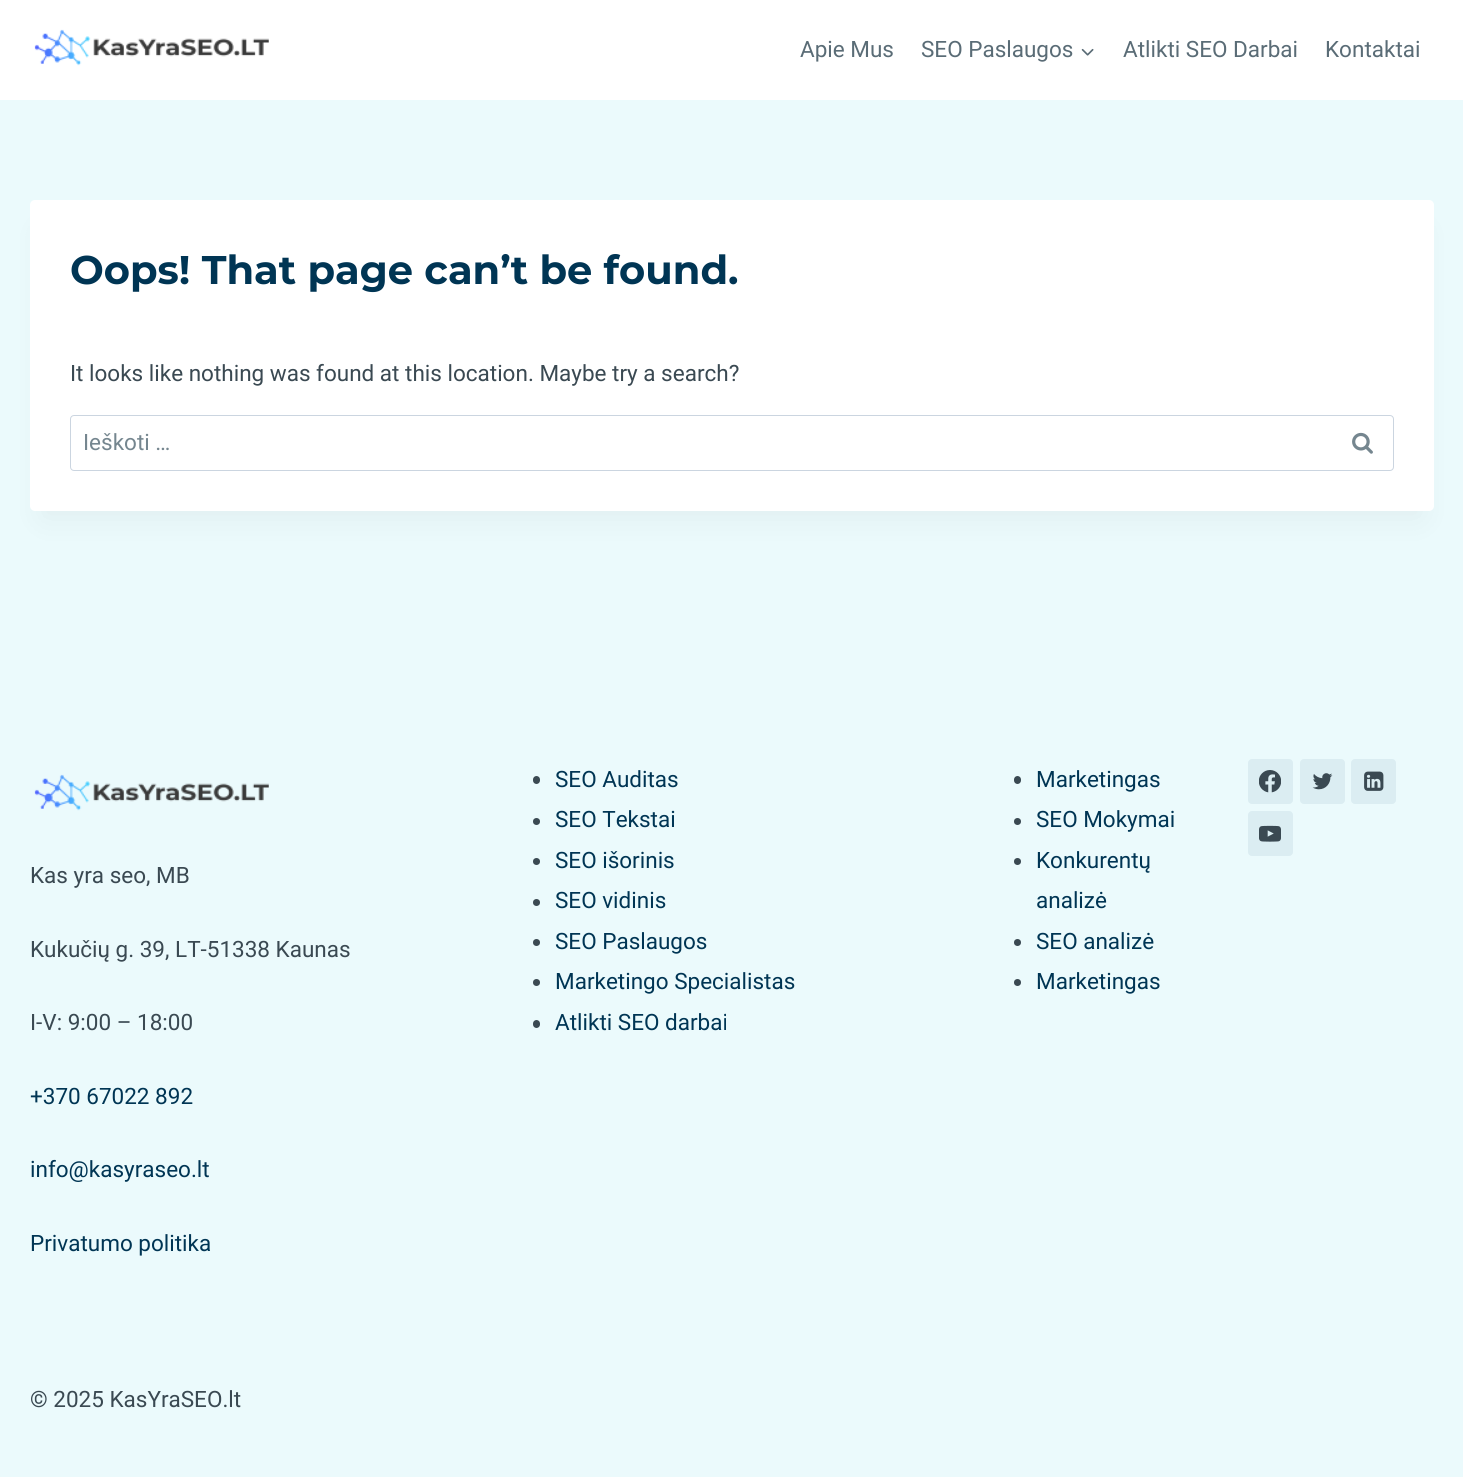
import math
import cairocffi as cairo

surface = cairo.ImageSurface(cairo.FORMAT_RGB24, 1463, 1477)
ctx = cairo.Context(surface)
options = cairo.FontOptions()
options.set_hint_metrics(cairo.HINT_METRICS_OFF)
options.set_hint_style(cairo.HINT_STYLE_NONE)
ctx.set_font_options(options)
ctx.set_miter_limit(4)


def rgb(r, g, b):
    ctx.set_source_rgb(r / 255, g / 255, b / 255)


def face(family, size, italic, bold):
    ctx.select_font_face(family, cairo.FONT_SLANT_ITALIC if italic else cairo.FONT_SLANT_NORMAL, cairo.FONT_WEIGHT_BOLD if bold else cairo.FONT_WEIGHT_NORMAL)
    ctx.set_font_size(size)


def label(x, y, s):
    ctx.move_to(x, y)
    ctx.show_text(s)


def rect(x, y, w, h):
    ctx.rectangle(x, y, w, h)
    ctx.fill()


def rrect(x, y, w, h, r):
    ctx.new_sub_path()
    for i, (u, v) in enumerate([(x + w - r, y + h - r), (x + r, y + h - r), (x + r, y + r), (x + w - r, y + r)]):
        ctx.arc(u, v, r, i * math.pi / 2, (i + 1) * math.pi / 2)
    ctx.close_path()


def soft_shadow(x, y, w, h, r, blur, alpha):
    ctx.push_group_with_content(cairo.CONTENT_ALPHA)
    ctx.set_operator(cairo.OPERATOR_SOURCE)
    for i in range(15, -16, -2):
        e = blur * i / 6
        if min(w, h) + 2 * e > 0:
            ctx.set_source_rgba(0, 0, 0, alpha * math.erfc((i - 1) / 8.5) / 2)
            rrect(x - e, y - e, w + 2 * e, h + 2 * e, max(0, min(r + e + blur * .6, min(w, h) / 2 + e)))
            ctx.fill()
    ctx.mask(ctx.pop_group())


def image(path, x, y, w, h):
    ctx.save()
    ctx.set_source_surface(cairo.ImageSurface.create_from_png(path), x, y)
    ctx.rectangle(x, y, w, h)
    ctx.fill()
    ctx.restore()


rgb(235, 250, 252)
ctx.paint()
rgb(255, 255, 255)
rect(0, 0, 1463, 100)
image('image0.png', 34, 29, 235, 37)
face('Roboto', 22.5, 0, 0)
rgb(90, 108, 118)
label(800, 57, 'Apie Mus')
label(921, 57, 'SEO Paslaugos')
image('image1.png', 1081, 48, 13, 8)
label(1123, 57, 'Atlikti SEO Darbai')
label(1325, 57, 'Kontaktai')
rgb(0, 0, 0)
soft_shadow(43, 231, 1378, 287, 0, 15.5, 0.05)
rgb(255, 255, 255)
rrect(30, 200, 1404, 311, 5)
ctx.fill()
face('Montserrat Thin', 40, 0, 0)
rgb(0, 53, 84)
label(70, 284, 'Oops! That page can’t be found.')
face('Roboto', 22.5, 0, 0)
rgb(58, 73, 82)
label(70, 381, 'It looks like nothing was found at this location. Maybe try a search?')
rrect(70.5, 415.5, 1323, 55, 3.5)
rgb(203, 213, 224)
ctx.set_line_width(1)
ctx.stroke()
rgb(117, 134, 143)
label(83, 450, 'Ieškoti …')
image('image2.png', 1352, 432, 21, 22)
image('image3.png', 34, 774, 235, 37)
rgb(58, 73, 82)
label(30, 883, 'Kas yra seo, MB')
label(30, 957, 'Kukučių g. 39, LT-51338 Kaunas')
label(30, 1030, 'I-V: 9:00 – 18:00')
rgb(0, 53, 84)
label(30, 1104, '+370 67022 892')
label(30, 1177, 'info@kasyraseo.lt')
label(30, 1251, 'Privatumo politika')
rgb(58, 73, 82)
rrect(533, 776, 7, 8, 3.5)
ctx.fill()
rgb(0, 53, 84)
label(555, 787, 'SEO Auditas')
rgb(58, 73, 82)
ctx.new_path()
ctx.arc(536.5, 821.5, 3.5, 0, 2 * math.pi)
ctx.fill()
rgb(0, 53, 84)
label(555, 827, 'SEO Tekstai')
rgb(58, 73, 82)
ctx.new_path()
ctx.arc(536.5, 861.5, 3.5, 0, 2 * math.pi)
ctx.fill()
rgb(0, 53, 84)
label(555, 868, 'SEO išorinis')
rgb(58, 73, 82)
ctx.new_path()
ctx.arc(536.5, 902.5, 3.5, 0, 2 * math.pi)
ctx.fill()
rgb(0, 53, 84)
label(555, 908, 'SEO vidinis')
rgb(58, 73, 82)
ctx.new_path()
ctx.arc(536.5, 942.5, 3.5, 0, 2 * math.pi)
ctx.fill()
rgb(0, 53, 84)
label(555, 949, 'SEO Paslaugos')
rgb(58, 73, 82)
ctx.new_path()
ctx.arc(536.5, 982.5, 3.5, 0, 2 * math.pi)
ctx.fill()
rgb(0, 53, 84)
label(555, 989, 'Marketingo Specialistas')
rgb(58, 73, 82)
rrect(533, 1020, 7, 8, 3.5)
ctx.fill()
rgb(0, 53, 84)
label(555, 1030, 'Atlikti SEO darbai')
rgb(58, 73, 82)
rrect(1014, 776, 7, 8, 3.5)
ctx.fill()
rgb(0, 53, 84)
label(1036, 787, 'Marketingas')
rgb(58, 73, 82)
ctx.new_path()
ctx.arc(1017.5, 821.5, 3.5, 0, 2 * math.pi)
ctx.fill()
rgb(0, 53, 84)
label(1036, 827, 'SEO Mokymai')
rgb(58, 73, 82)
ctx.new_path()
ctx.arc(1017.5, 861.5, 3.5, 0, 2 * math.pi)
ctx.fill()
rgb(0, 53, 84)
label(1036, 868, 'Konkurentų')
label(1036, 908, 'analizė')
rgb(58, 73, 82)
ctx.new_path()
ctx.arc(1017.5, 942.5, 3.5, 0, 2 * math.pi)
ctx.fill()
rgb(0, 53, 84)
label(1036, 949, 'SEO analizė')
rgb(58, 73, 82)
ctx.new_path()
ctx.arc(1017.5, 982.5, 3.5, 0, 2 * math.pi)
ctx.fill()
rgb(0, 53, 84)
label(1036, 989, 'Marketingas')
rgb(219, 237, 242)
rrect(1248, 759, 45, 45, 4)
ctx.fill()
image('image4.png', 1259, 770, 22, 23)
rrect(1300, 759, 45, 45, 4)
ctx.fill()
image('image5.png', 1312, 773, 21, 17)
rrect(1351, 759, 45, 45, 4)
ctx.fill()
image('image6.png', 1364, 771, 20, 20)
rrect(1248, 811, 45, 45, 4)
ctx.fill()
image('image7.png', 1259, 825, 22, 17)
rgb(58, 73, 82)
label(30, 1407, '© 2025 KasYraSEO.lt')
surface.write_to_png('render.png')
